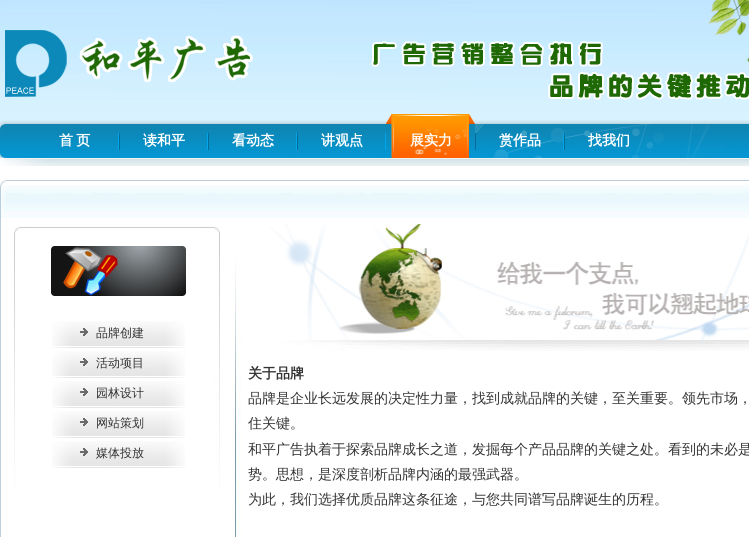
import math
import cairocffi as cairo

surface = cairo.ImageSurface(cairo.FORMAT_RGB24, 749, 537)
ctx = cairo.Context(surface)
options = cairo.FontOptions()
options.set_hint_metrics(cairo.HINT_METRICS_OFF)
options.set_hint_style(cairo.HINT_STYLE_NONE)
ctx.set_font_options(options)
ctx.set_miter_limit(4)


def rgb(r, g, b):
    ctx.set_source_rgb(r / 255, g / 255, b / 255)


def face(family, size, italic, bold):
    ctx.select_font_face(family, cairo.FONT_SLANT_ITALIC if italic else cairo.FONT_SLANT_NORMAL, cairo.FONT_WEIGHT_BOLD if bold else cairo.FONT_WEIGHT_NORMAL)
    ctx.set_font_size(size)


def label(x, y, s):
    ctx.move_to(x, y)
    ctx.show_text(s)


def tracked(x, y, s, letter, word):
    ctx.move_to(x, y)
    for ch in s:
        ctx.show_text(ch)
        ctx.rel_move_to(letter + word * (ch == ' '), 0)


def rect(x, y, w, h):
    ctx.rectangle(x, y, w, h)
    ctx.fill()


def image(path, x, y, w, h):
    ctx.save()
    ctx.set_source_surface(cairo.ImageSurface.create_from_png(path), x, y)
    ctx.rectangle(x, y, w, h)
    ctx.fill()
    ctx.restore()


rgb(255, 255, 255)
ctx.paint()
image('image0.png', 0, 0, 749, 120)
image('image1.png', 5, 0, 744, 100)
image('image2.png', 0, 120, 749, 46)
face('WenQuanYi Zen Hei', 14, 0, 1)
rgb(255, 255, 255)
tracked(59, 145, '首 页', 0, -1)
label(143, 145, '读和平')
label(232, 145, '看动态')
label(321, 145, '讲观点')
image('image3.png', 386, 114, 89, 44)
label(410, 145, '展实力')
label(499, 145, '赏作品')
label(588, 145, '找我们')
image('image4.png', 0, 180, 749, 44)
rgb(188, 206, 217)
rect(0, 224, 1, 313)
image('image5.png', 14, 225, 206, 263)
image('image6.png', 51, 246, 135, 50)
image('image7.png', 52, 321, 133, 27)
face('WenQuanYi Zen Hei Medium', 12, 0, 0)
rgb(51, 51, 51)
label(96, 337, '品牌创建')
image('image7.png', 52, 351, 133, 27)
label(96, 367, '活动项目')
image('image7.png', 52, 381, 133, 27)
label(96, 397, '园林设计')
image('image7.png', 52, 411, 133, 27)
label(96, 427, '网站策划')
image('image7.png', 52, 441, 133, 27)
label(96, 457, '媒体投放')
image('image8.png', 235, 434, 6, 7)
image('image9.png', 235, 224, 6, 210)
image('image10.png', 269, 224, 480, 127)
face('WenQuanYi Zen Hei', 14, 0, 1)
label(248, 378, '关于品牌')
face('WenQuanYi Zen Hei Medium', 14, 0, 0)
label(248, 403, '品牌是企业长远发展的决定性力量，找到成就品牌的关键，至关重要。领先市场，')
label(248, 428, '住关键。')
label(248, 454, '和平广告执着于探索品牌成长之道，发掘每个产品品牌的关键之处。看到的未必是')
label(248, 479, '势。思想，是深度剖析品牌内涵的最强武器。')
label(248, 504, '为此，我们选择优质品牌这条征途，与您共同谱写品牌诞生的历程。')
image('image11.png', 235, 441, 6, 96)
surface.write_to_png('render.png')
